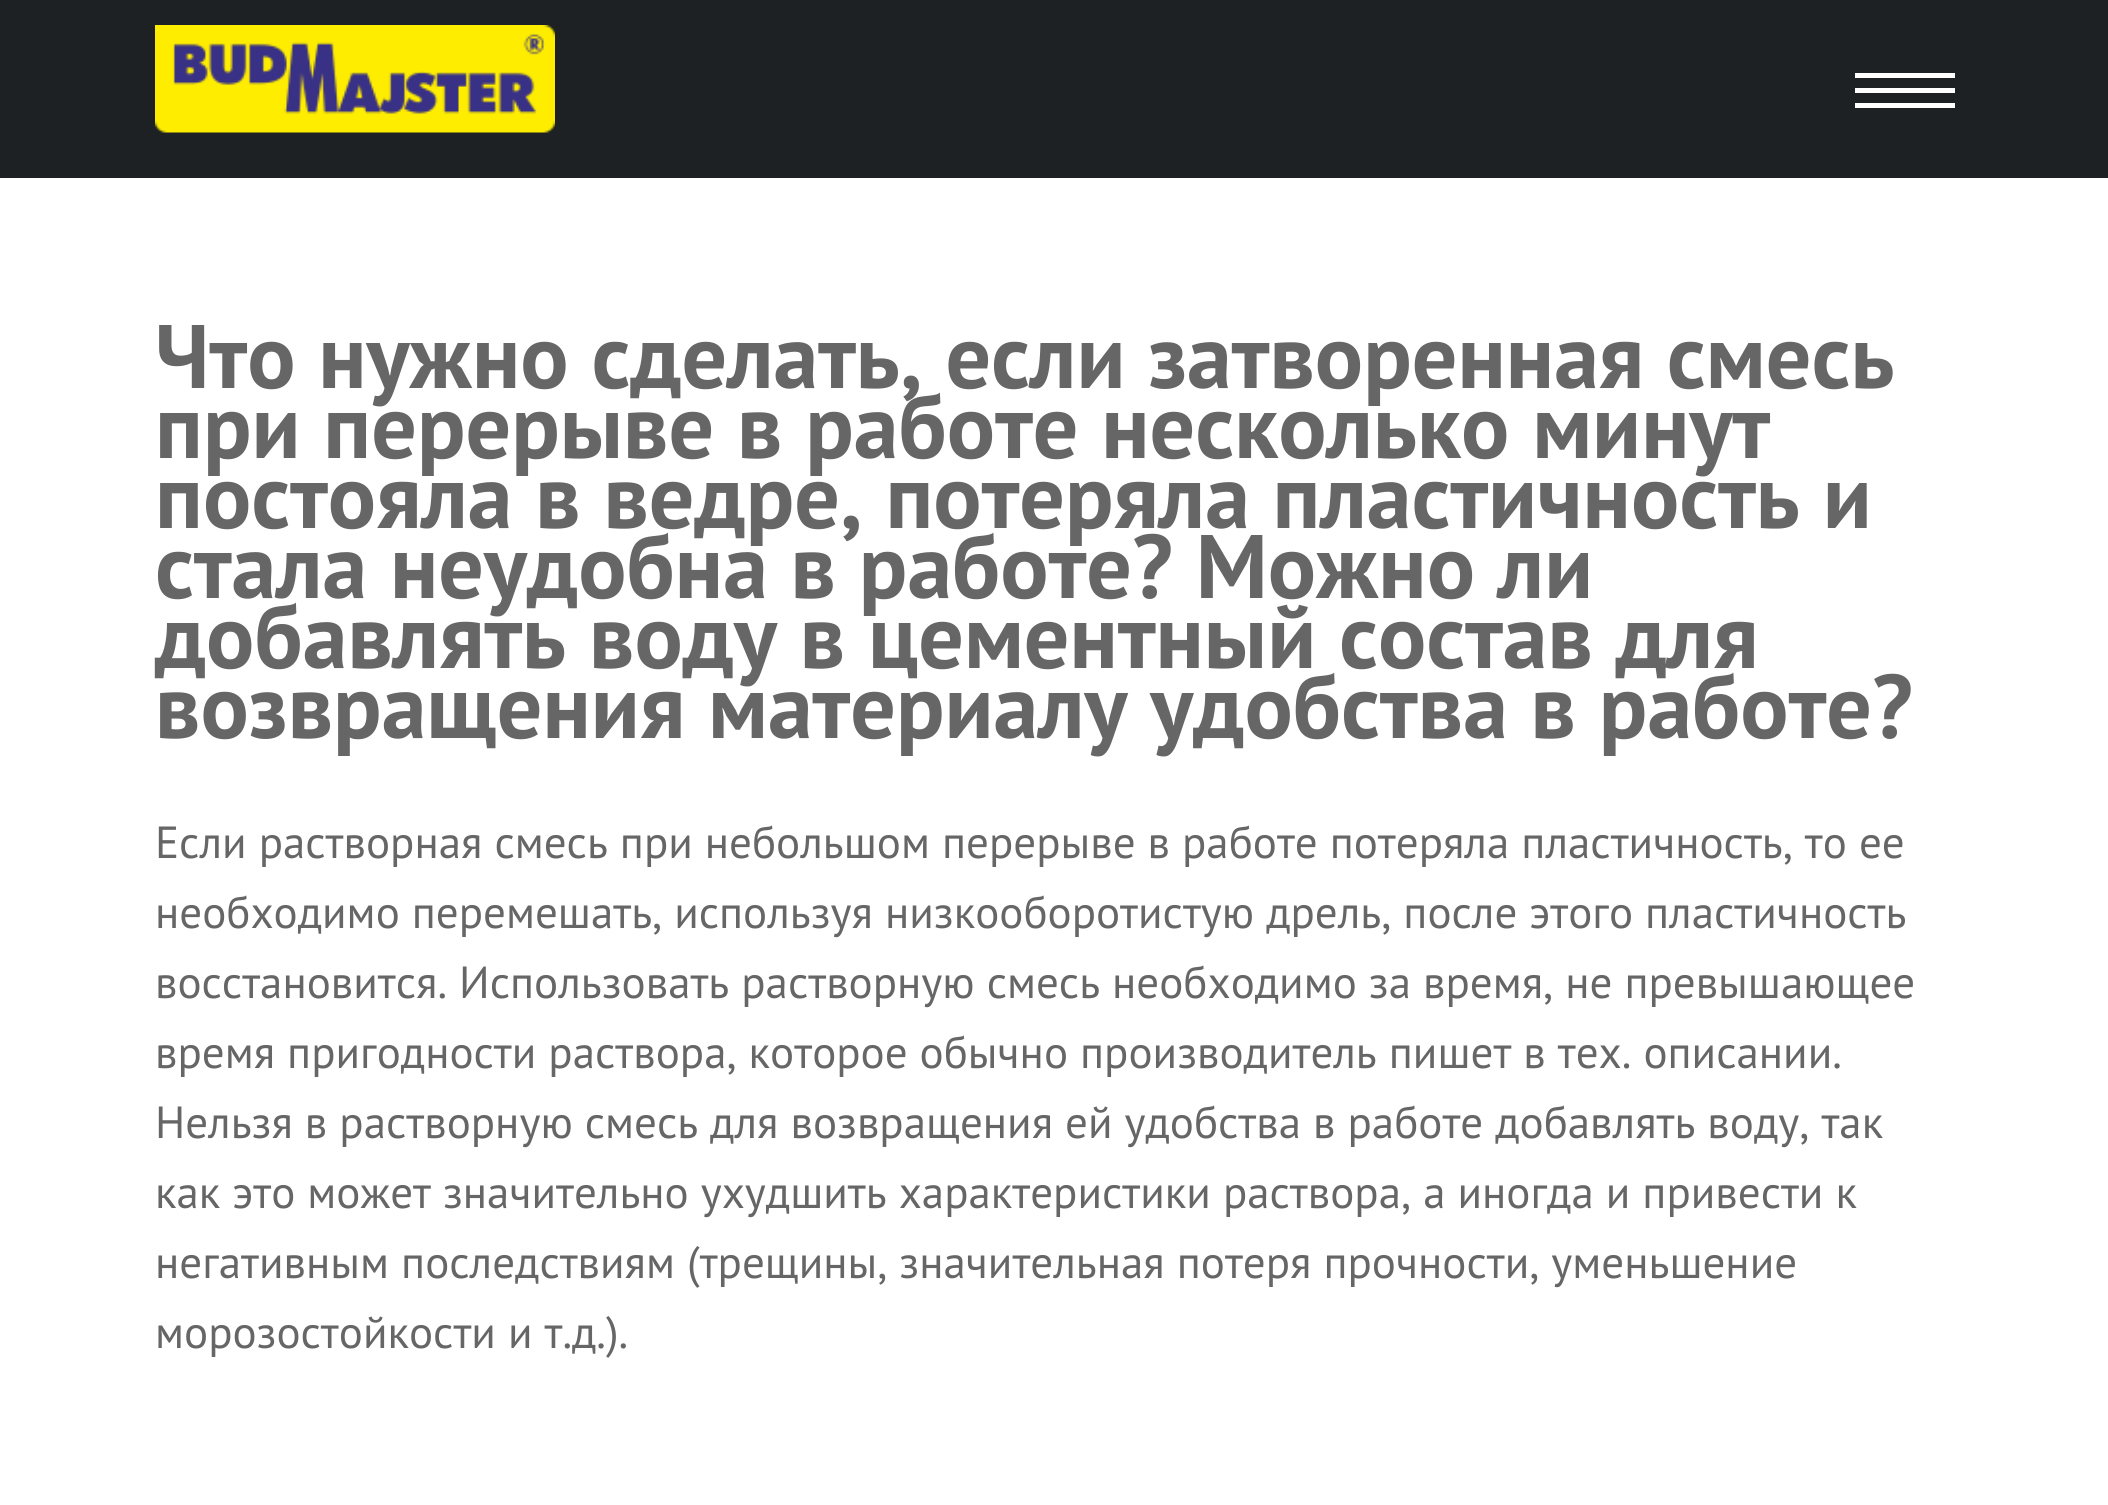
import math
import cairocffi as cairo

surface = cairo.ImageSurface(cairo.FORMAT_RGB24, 2108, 1505)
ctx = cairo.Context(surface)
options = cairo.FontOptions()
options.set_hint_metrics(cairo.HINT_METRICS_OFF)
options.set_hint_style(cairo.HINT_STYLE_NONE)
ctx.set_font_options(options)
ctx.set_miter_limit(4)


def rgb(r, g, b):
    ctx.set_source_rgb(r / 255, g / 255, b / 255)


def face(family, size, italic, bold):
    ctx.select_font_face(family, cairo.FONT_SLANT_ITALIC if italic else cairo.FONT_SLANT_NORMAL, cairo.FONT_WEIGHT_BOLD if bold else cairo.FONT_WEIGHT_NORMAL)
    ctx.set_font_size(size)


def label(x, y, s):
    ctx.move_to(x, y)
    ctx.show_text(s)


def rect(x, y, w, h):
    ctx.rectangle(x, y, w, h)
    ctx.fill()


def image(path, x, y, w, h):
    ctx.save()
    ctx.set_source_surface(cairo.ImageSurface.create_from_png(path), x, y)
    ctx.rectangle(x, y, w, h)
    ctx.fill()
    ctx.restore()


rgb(255, 255, 255)
ctx.paint()
rgb(29, 33, 36)
rect(0, 0, 2108, 178)
image('image0.png', 155, 25, 400, 108)
rgb(255, 255, 255)
rect(1855, 73, 100, 5)
rect(1855, 88, 100, 5)
rect(1855, 103, 100, 5)
face('PT Sans', 90, 0, 1)
rgb(102, 102, 102)
label(155, 388, 'Что нужно сделать, если затворенная смесь')
label(155, 458, 'при перерыве в работе несколько минут')
label(155, 528, 'постояла в ведре, потеряла пластичность и')
label(155, 598, 'стала неудобна в работе? Можно ли')
label(155, 668, 'добавлять воду в цементный состав для')
label(155, 738, 'возвращения материалу удобства в работе?')
face('PT Sans', 45, 0, 0)
label(155, 858, 'Если растворная смесь при небольшом перерыве в работе потеряла пластичность, то ее')
label(155, 928, 'необходимо перемешать, используя низкооборотистую дрель, после этого пластичность')
label(155, 998, 'восстановится. Использовать растворную смесь необходимо за время, не превышающее')
label(155, 1068, 'время пригодности раствора, которое обычно производитель пишет в тех. описании.')
label(155, 1138, 'Нельзя в растворную смесь для возвращения ей удобства в работе добавлять воду, так')
label(155, 1208, 'как это может значительно ухудшить характеристики раствора, а иногда и привести к')
label(155, 1278, 'негативным последствиям (трещины, значительная потеря прочности, уменьшение')
label(155, 1348, 'морозостойкости и т.д.).')
surface.write_to_png('render.png')
